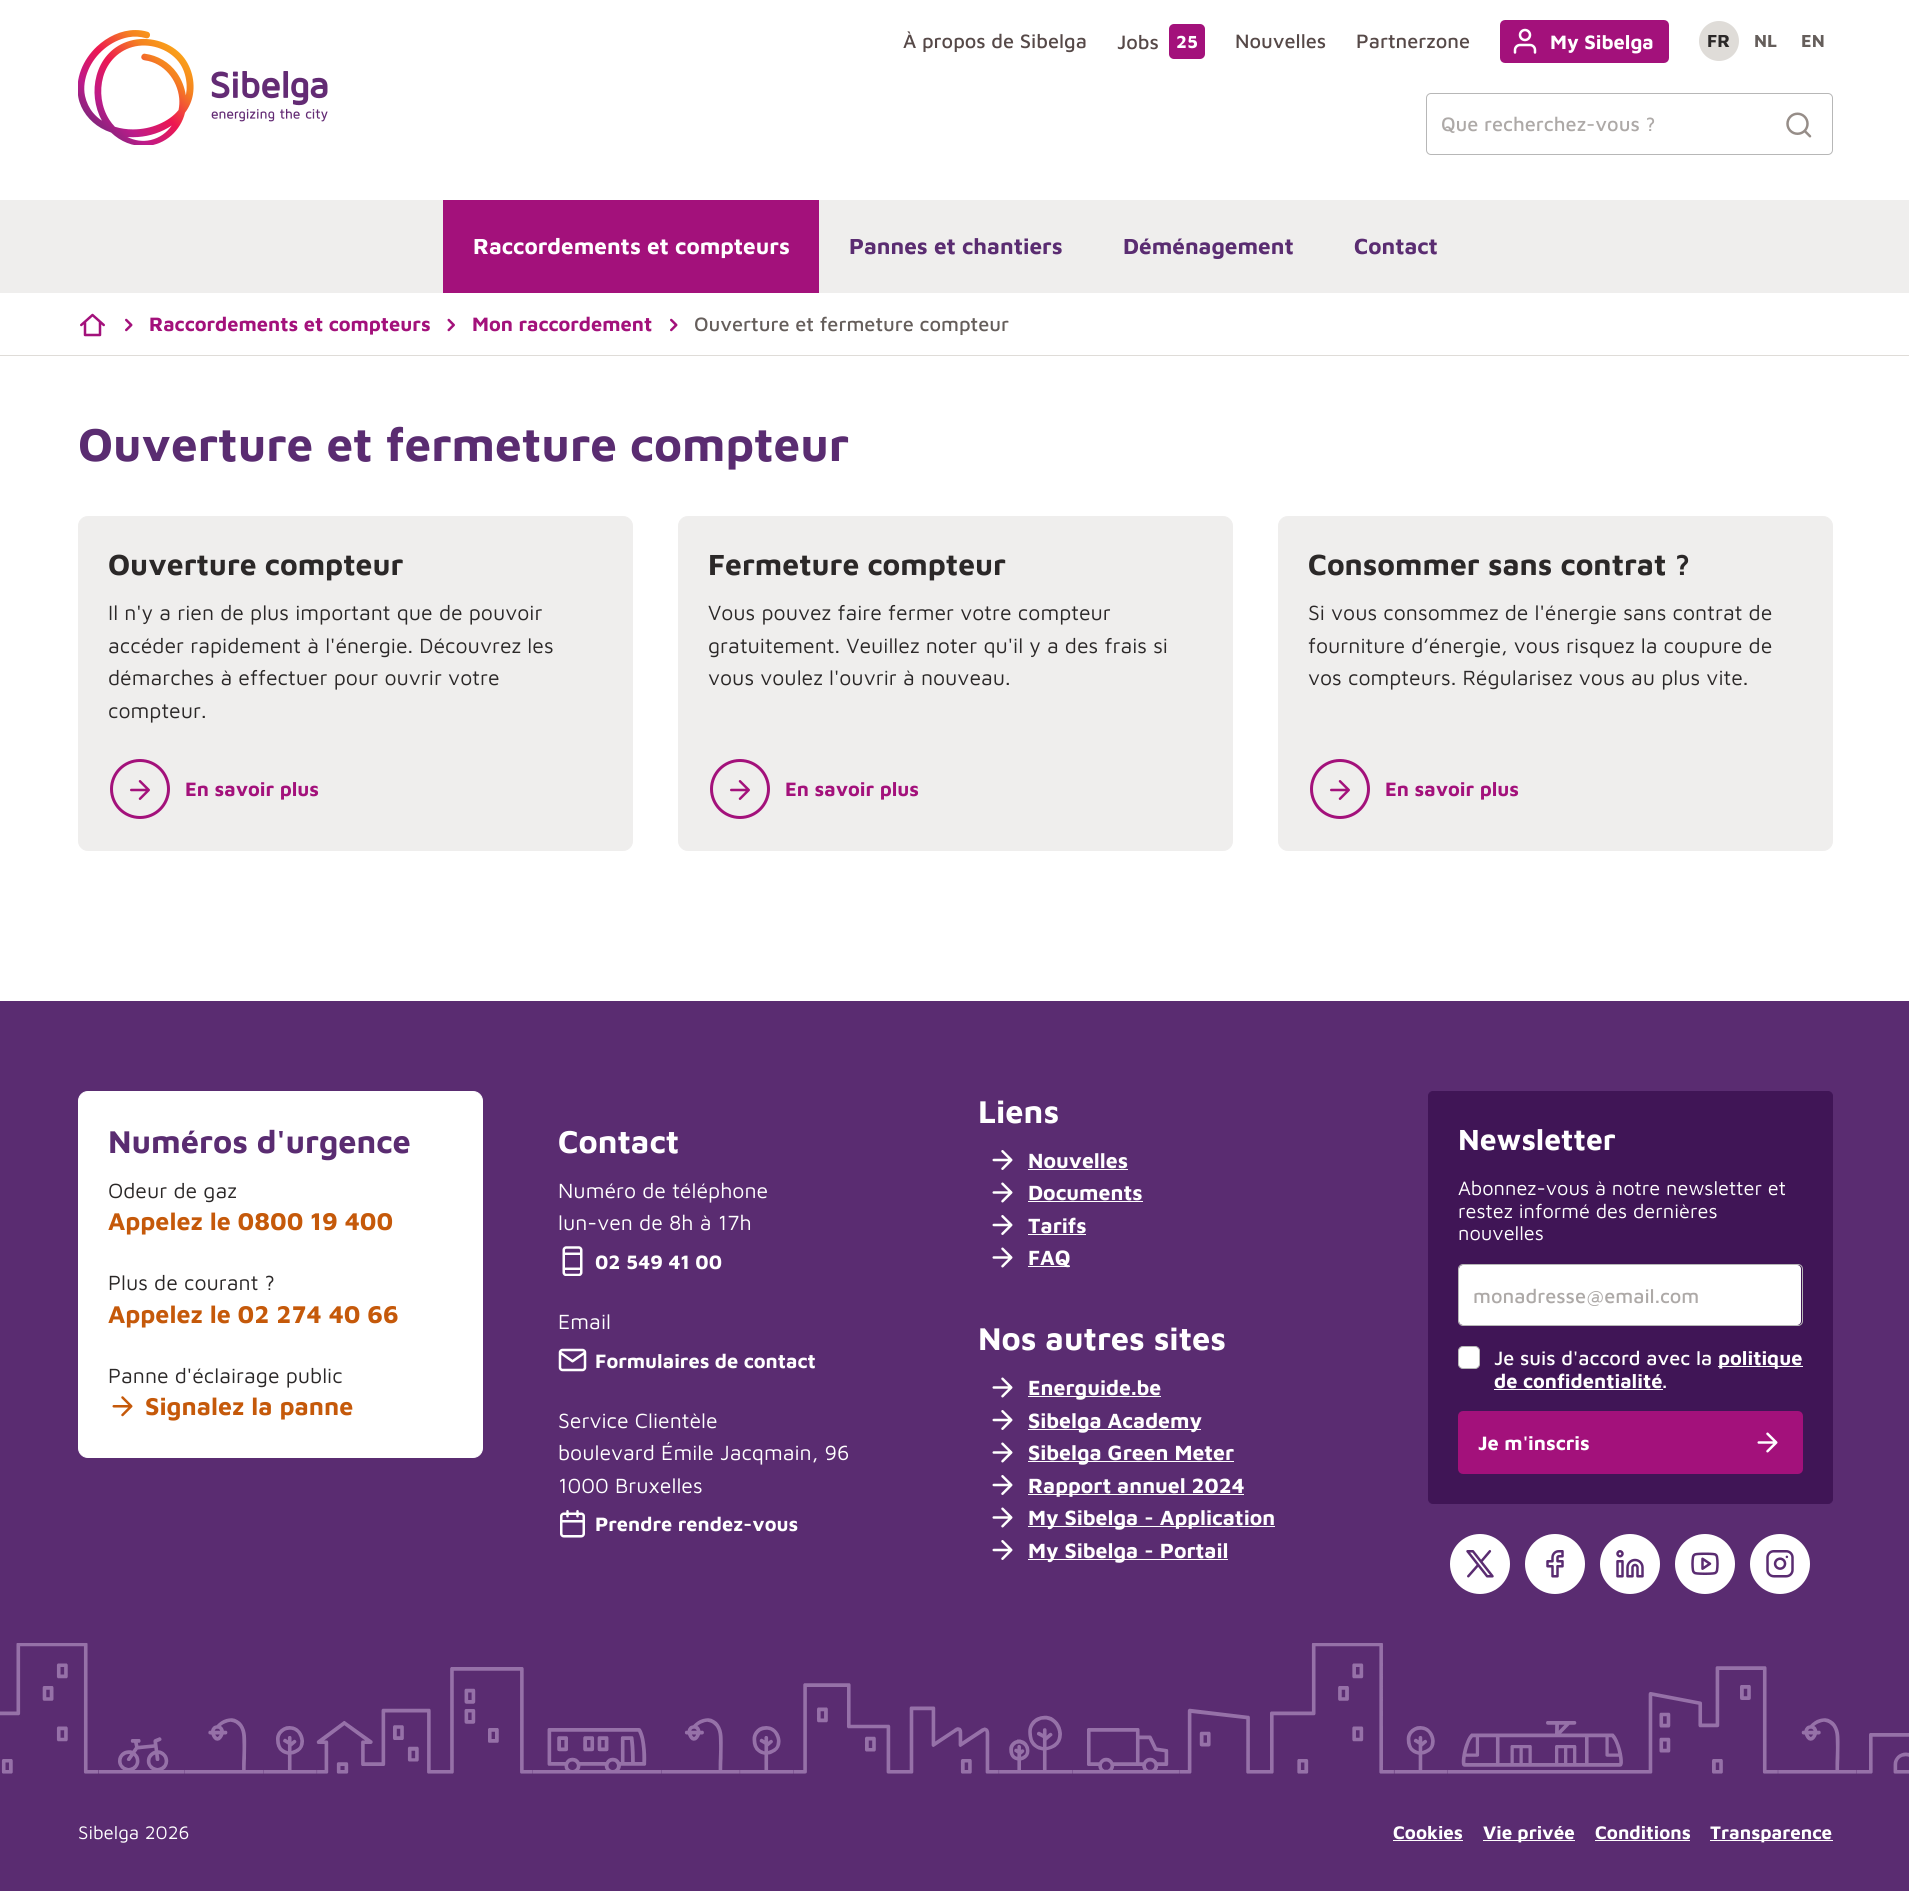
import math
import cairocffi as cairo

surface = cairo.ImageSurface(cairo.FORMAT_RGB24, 1909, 1891)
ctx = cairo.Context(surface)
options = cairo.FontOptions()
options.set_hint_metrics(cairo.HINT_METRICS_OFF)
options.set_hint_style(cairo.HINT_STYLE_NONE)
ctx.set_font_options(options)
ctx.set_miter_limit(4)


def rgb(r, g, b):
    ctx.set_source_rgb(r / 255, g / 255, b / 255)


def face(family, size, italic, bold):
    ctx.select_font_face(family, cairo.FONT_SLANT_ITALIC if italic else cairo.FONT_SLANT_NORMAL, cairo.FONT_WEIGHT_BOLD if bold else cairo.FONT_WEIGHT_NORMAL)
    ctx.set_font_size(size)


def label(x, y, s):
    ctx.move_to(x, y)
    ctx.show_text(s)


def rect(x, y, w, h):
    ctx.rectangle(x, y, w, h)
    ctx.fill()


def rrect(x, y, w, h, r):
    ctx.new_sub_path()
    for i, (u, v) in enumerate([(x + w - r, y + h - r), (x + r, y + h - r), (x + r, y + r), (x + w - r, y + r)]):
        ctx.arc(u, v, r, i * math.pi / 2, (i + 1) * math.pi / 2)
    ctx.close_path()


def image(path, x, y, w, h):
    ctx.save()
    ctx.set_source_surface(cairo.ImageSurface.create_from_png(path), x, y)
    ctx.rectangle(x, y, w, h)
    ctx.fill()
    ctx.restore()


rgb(255, 255, 255)
ctx.paint()
image('image0.png', 78, 30, 250, 115)
face('Maven Pro Medium', 20, 0, 0)
rgb(86, 73, 72)
label(903, 48, 'À propos de Sibelga')
label(1117, 49, 'Jobs')
rgb(163, 17, 123)
rrect(1169, 24, 36, 35, 5)
ctx.fill()
face('Maven Pro', 18, 0, 1)
rgb(255, 255, 255)
label(1176, 48, '25')
face('Maven Pro Medium', 20, 0, 0)
rgb(86, 73, 72)
label(1235, 48, 'Nouvelles')
label(1356, 48, 'Partnerzone')
rgb(163, 17, 123)
rrect(1501.5, 21.5, 166, 40, 3.5)
ctx.fill_preserve()
ctx.set_line_width(3)
ctx.stroke()
image('image1.png', 1513, 28, 24, 26)
face('Maven Pro', 20, 0, 1)
rgb(255, 255, 255)
label(1550, 49, 'My Sibelga')
rgb(223, 220, 216)
ctx.new_path()
ctx.arc(1719, 41, 20, 0, 2 * math.pi)
ctx.fill()
face('Maven Pro', 18, 0, 1)
rgb(43, 40, 40)
label(1707, 47, 'FR')
rgb(101, 94, 91)
label(1754, 47, 'NL')
label(1801, 47, 'EN')
rrect(1426.5, 93.5, 406, 61, 4.5)
rgb(183, 183, 183)
ctx.set_line_width(1)
ctx.stroke()
face('Maven Pro Medium', 20, 0, 0)
rgb(173, 169, 167)
label(1441, 131, 'Que recherchez-vous ?')
image('image2.png', 1786, 112, 26, 26)
rgb(239, 238, 237)
rect(0, 200, 1909, 93)
rgb(163, 17, 123)
rect(443, 200, 376, 93)
face('Maven Pro', 22.5, 0, 1)
rgb(255, 255, 255)
label(473, 254, 'Raccordements et compteurs')
rgb(90, 44, 113)
label(849, 254, 'Pannes et chantiers')
label(1123, 254, 'Déménagement')
label(1354, 254, 'Contact')
image('image3.png', 80, 313, 25, 24)
image('image4.png', 125, 318, 8, 14)
face('Maven Pro', 20, 0, 1)
rgb(163, 17, 123)
label(149, 331, 'Raccordements et compteurs')
image('image5.png', 447, 318, 8, 14)
label(472, 331, 'Mon raccordement')
image('image4.png', 670, 318, 8, 14)
face('Maven Pro Medium', 20, 0, 0)
rgb(101, 94, 91)
label(694, 331, 'Ouverture et fermeture compteur')
rgb(223, 220, 216)
rect(0, 355, 1909, 1)
face('Maven Pro', 47.5, 0, 1)
rgb(90, 44, 113)
label(78, 461, 'Ouverture et fermeture compteur')
rgb(239, 238, 237)
rrect(78.5, 516.5, 554, 334, 9.5)
ctx.fill_preserve()
ctx.stroke()
face('Maven Pro', 30, 0, 1)
rgb(43, 40, 40)
label(108, 575, 'Ouverture compteur')
face('Maven Pro', 21.25, 0, 0)
label(108, 620, 'Il n\'y a rien de plus important que de pouvoir')
label(108, 653, 'accéder rapidement à l\'énergie. Découvrez les')
label(108, 685, 'démarches à effectuer pour ouvrir votre')
label(108, 718, 'compteur.')
ctx.new_path()
ctx.arc(140, 789, 28.5, 0, 2 * math.pi)
rgb(163, 17, 123)
ctx.set_line_width(3)
ctx.stroke()
image('image6.png', 130, 780, 20, 20)
face('Maven Pro', 20, 0, 1)
label(185, 796, 'En savoir plus')
rgb(239, 238, 237)
rrect(678.5, 516.5, 554, 334, 9.5)
ctx.fill_preserve()
ctx.set_line_width(1)
ctx.stroke()
face('Maven Pro', 30, 0, 1)
rgb(43, 40, 40)
label(708, 575, 'Fermeture compteur')
face('Maven Pro', 21.25, 0, 0)
label(708, 620, 'Vous pouvez faire fermer votre compteur')
label(708, 653, 'gratuitement. Veuillez noter qu\'il y a des frais si')
label(708, 685, 'vous voulez l\'ouvrir à nouveau.')
ctx.new_path()
ctx.arc(740, 789, 28.5, 0, 2 * math.pi)
rgb(163, 17, 123)
ctx.set_line_width(3)
ctx.stroke()
image('image6.png', 730, 780, 20, 20)
face('Maven Pro', 20, 0, 1)
label(785, 796, 'En savoir plus')
rgb(239, 238, 237)
rrect(1278.5, 516.5, 554, 334, 9.5)
ctx.fill_preserve()
ctx.set_line_width(1)
ctx.stroke()
face('Maven Pro', 30, 0, 1)
rgb(43, 40, 40)
label(1308, 575, 'Consommer sans contrat ?')
face('Maven Pro', 21.25, 0, 0)
label(1308, 620, 'Si vous consommez de l\'énergie sans contrat de')
label(1308, 653, 'fourniture d’énergie, vous risquez la coupure de')
label(1308, 685, 'vos compteurs. Régularisez vous au plus vite.')
ctx.new_path()
ctx.arc(1340, 789, 28.5, 0, 2 * math.pi)
rgb(163, 17, 123)
ctx.set_line_width(3)
ctx.stroke()
image('image6.png', 1330, 780, 20, 20)
face('Maven Pro', 20, 0, 1)
label(1385, 796, 'En savoir plus')
rgb(90, 44, 113)
rect(0, 1001, 1909, 890)
image('image7.png', 0, 1643, 1909, 131)
rgb(255, 255, 255)
rrect(78.5, 1091.5, 404, 366, 9.5)
ctx.fill_preserve()
ctx.set_line_width(1)
ctx.stroke()
face('Maven Pro', 32.5, 0, 1)
rgb(90, 44, 113)
label(108, 1153, 'Numéros d\'urgence')
face('Maven Pro', 21.25, 0, 0)
rgb(43, 40, 40)
label(108, 1198, 'Odeur de gaz')
face('Maven Pro', 25, 0, 1)
rgb(197, 89, 10)
label(108, 1230, 'Appelez le 0800 19 400')
face('Maven Pro', 21.25, 0, 0)
rgb(43, 40, 40)
label(108, 1290, 'Plus de courant ?')
face('Maven Pro', 25, 0, 1)
rgb(197, 89, 10)
label(108, 1323, 'Appelez le 02 274 40 66')
face('Maven Pro', 21.25, 0, 0)
rgb(43, 40, 40)
label(108, 1383, 'Panne d\'éclairage public')
image('image8.png', 112, 1396, 21, 21)
face('Maven Pro', 25, 0, 1)
rgb(197, 89, 10)
label(145, 1415, 'Signalez la panne')
face('Maven Pro', 32.5, 0, 1)
rgb(255, 255, 255)
label(558, 1153, 'Contact')
face('Maven Pro', 21.25, 0, 0)
label(558, 1198, 'Numéro de téléphone')
label(558, 1230, 'lun-ven de 8h à 17h')
image('image9.png', 562, 1246, 21, 30)
face('Maven Pro', 20, 0, 1)
label(595, 1269, '02 549 41 00')
face('Maven Pro', 21.25, 0, 0)
label(558, 1329, 'Email')
image('image10.png', 558, 1348, 29, 24)
face('Maven Pro', 20, 0, 1)
label(595, 1368, 'Formulaires de contact')
face('Maven Pro', 21.25, 0, 0)
label(558, 1428, 'Service Clientèle')
label(558, 1460, 'boulevard Émile Jacqmain, 96')
label(558, 1493, '1000 Bruxelles')
image('image11.png', 560, 1510, 25, 28)
face('Maven Pro', 20, 0, 1)
label(595, 1531, 'Prendre rendez-vous')
face('Maven Pro', 32.5, 0, 1)
label(978, 1123, 'Liens')
image('image12.png', 992, 1150, 21, 20)
face('Maven Pro', 21.25, 0, 1)
label(1028, 1168, 'Nouvelles')
rect(1028, 1169, 100, 1)
image('image13.png', 992, 1182, 21, 21)
label(1028, 1200, 'Documents')
rect(1028, 1201, 115, 1)
image('image12.png', 992, 1215, 21, 20)
label(1028, 1233, 'Tarifs')
rect(1028, 1234, 58, 1)
image('image13.png', 992, 1247, 21, 21)
rect(1028, 1266, 42, 1)
label(1028, 1265, 'FAQ')
face('Maven Pro', 32.5, 0, 1)
label(978, 1350, 'Nos autres sites')
image('image13.png', 992, 1377, 21, 21)
rect(1028, 1396, 133, 1)
face('Maven Pro', 21.25, 0, 1)
label(1028, 1395, 'Energuide.be')
image('image12.png', 992, 1410, 21, 20)
rect(1028, 1429, 173, 1)
label(1028, 1428, 'Sibelga Academy')
image('image13.png', 992, 1442, 21, 21)
rect(1028, 1461, 206, 1)
label(1028, 1460, 'Sibelga Green Meter')
image('image12.png', 992, 1475, 21, 20)
rect(1028, 1494, 216, 1)
label(1028, 1493, 'Rapport annuel 2024')
image('image13.png', 992, 1507, 21, 21)
rect(1028, 1526, 247, 1)
label(1028, 1525, 'My Sibelga - Application')
image('image12.png', 992, 1540, 21, 20)
rect(1028, 1559, 200, 1)
label(1028, 1558, 'My Sibelga - Portail')
rgb(64, 21, 86)
rrect(1428.5, 1091.5, 404, 412, 4.5)
ctx.fill_preserve()
ctx.stroke()
face('Maven Pro', 30, 0, 1)
rgb(255, 255, 255)
label(1458, 1150, 'Newsletter')
face('Maven Pro', 20, 0, 0)
label(1458, 1195, 'Abonnez-vous à notre newsletter et')
label(1458, 1218, 'restez informé des dernières')
label(1458, 1240, 'nouvelles')
rrect(1459, 1265, 342, 60, 4)
ctx.fill()
rrect(1458.5, 1264.5, 344, 61, 4.5)
rgb(183, 183, 183)
ctx.stroke()
face('Maven Pro Medium', 20, 0, 0)
rgb(173, 169, 167)
label(1473, 1303, 'monadresse@email.com')
rgb(255, 255, 255)
rrect(1458.5, 1346.5, 21, 22, 4.5)
ctx.fill_preserve()
rgb(183, 183, 183)
ctx.stroke()
rgb(255, 255, 255)
label(1494, 1365, 'Je suis d\'accord avec la')
rect(1718, 1366, 85, 1)
face('Maven Pro', 20, 0, 1)
label(1718, 1365, 'politique')
label(1494, 1388, 'de confidentialité')
rect(1494, 1389, 169, 1)
face('Maven Pro Medium', 20, 0, 0)
label(1662, 1388, '.')
rgb(163, 17, 123)
rrect(1459.5, 1412.5, 342, 60, 3.5)
ctx.fill_preserve()
ctx.set_line_width(3)
ctx.stroke()
face('Maven Pro', 20, 0, 1)
rgb(255, 255, 255)
label(1478, 1450, 'Je m\'inscris')
image('image14.png', 1757, 1432, 21, 21)
ctx.arc(1480, 1564, 30, 0, 2 * math.pi)
ctx.fill()
image('image15.png', 1466, 1550, 28, 28)
ctx.arc(1555, 1564, 30, 0, 2 * math.pi)
ctx.fill()
image('image16.png', 1546, 1550, 18, 28)
ctx.arc(1630, 1564, 30, 0, 2 * math.pi)
ctx.fill()
image('image17.png', 1616, 1550, 28, 28)
ctx.arc(1705, 1564, 30, 0, 2 * math.pi)
ctx.fill()
image('image18.png', 1691, 1552, 28, 23)
ctx.arc(1780, 1564, 30, 0, 2 * math.pi)
ctx.fill()
image('image19.png', 1766, 1550, 28, 28)
face('Maven Pro', 18.75, 0, 0)
label(78, 1839, 'Sibelga 2026')
face('Maven Pro', 18.75, 0, 1)
label(1393, 1839, 'Cookies')
rect(1393, 1840, 70, 1)
rect(1483, 1840, 92, 1)
label(1483, 1839, 'Vie privée')
label(1595, 1839, 'Conditions')
rect(1595, 1840, 95, 1)
rect(1710, 1840, 123, 1)
label(1710, 1839, 'Transparence')
surface.write_to_png('render.png')
